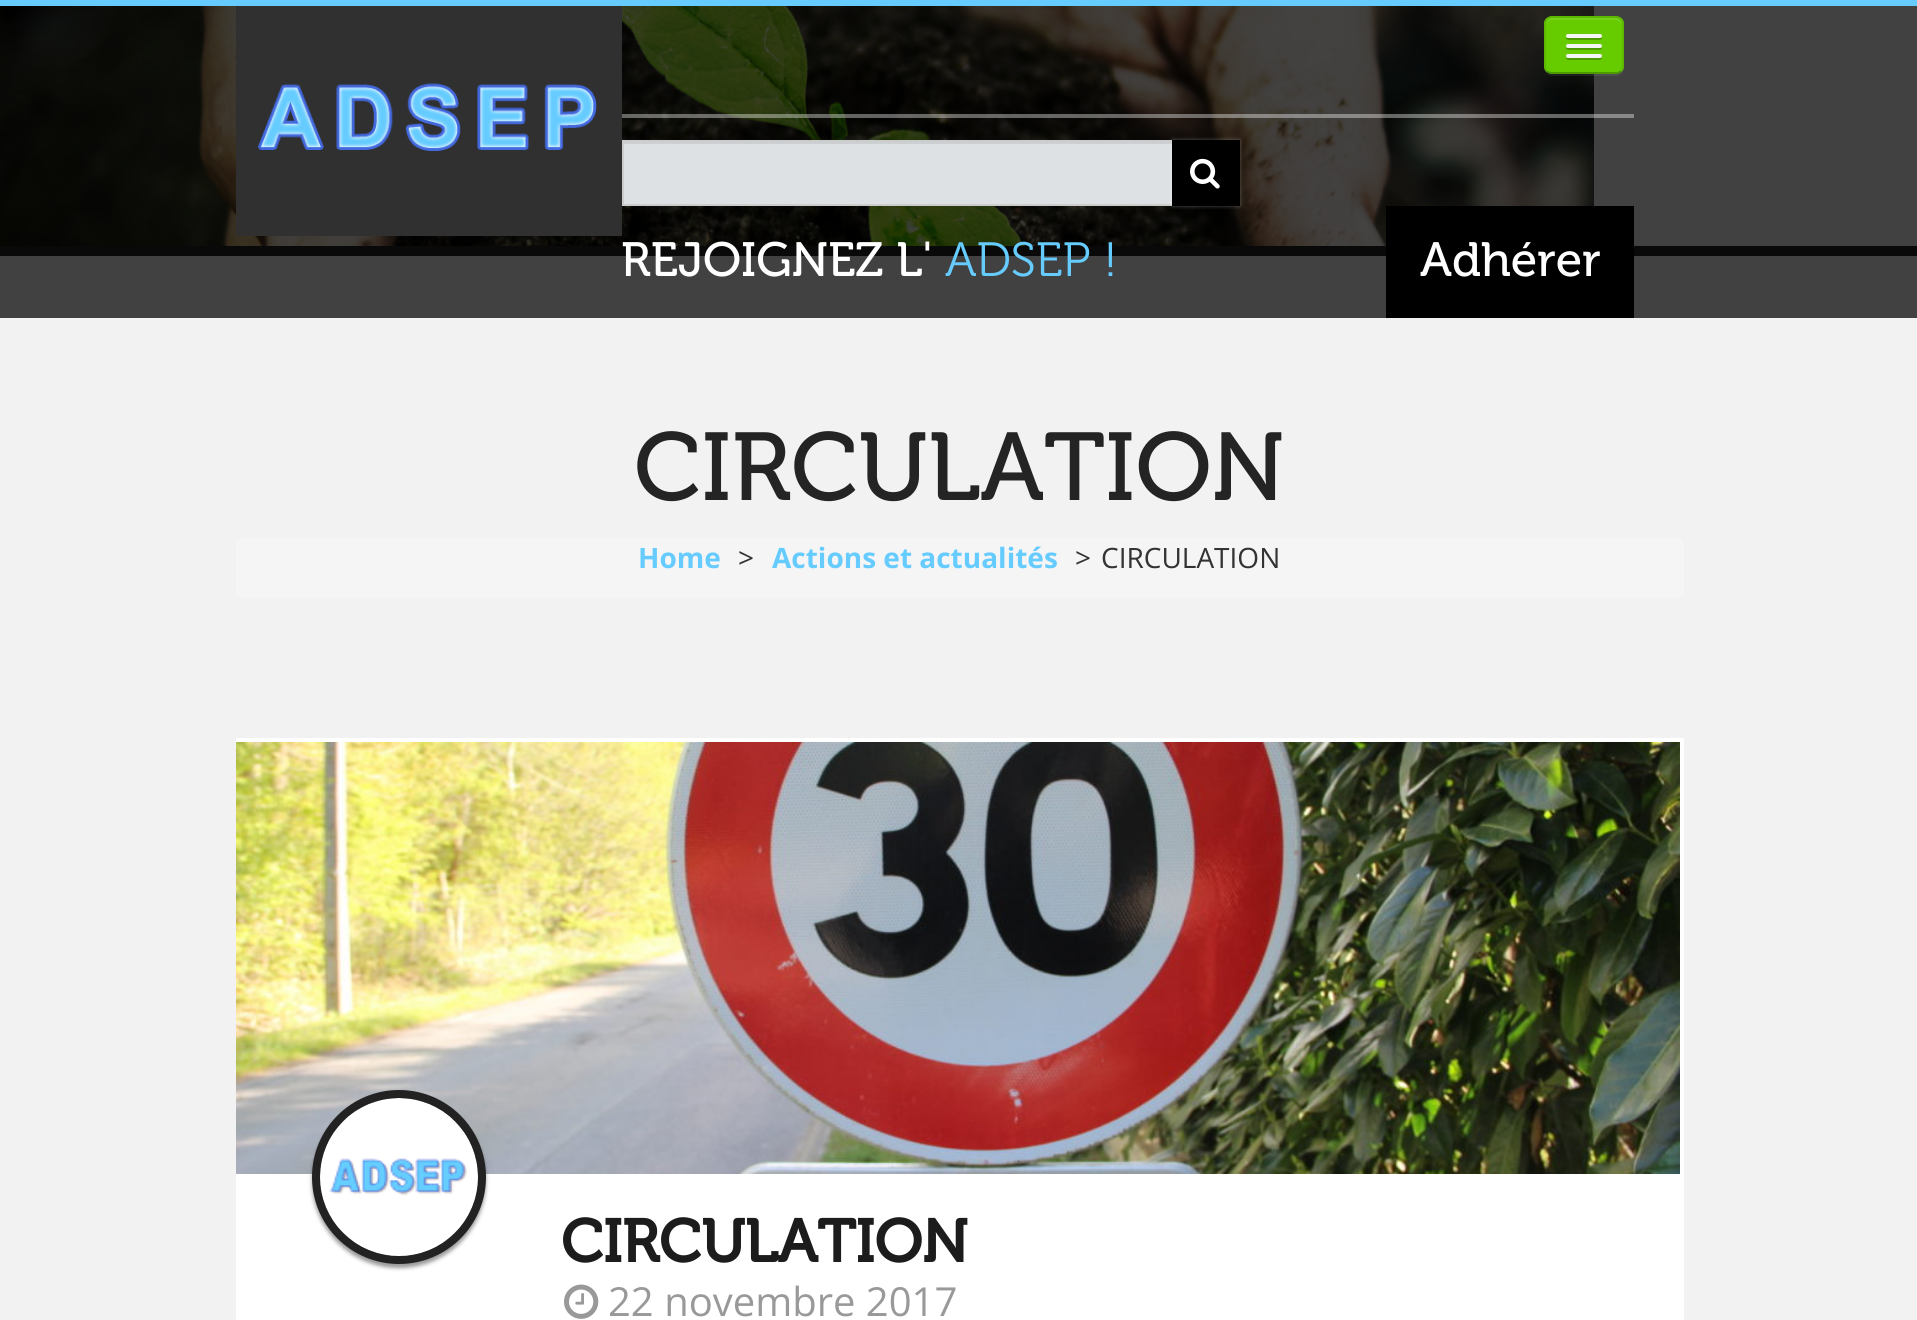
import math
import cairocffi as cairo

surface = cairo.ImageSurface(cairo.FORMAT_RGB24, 1917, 1320)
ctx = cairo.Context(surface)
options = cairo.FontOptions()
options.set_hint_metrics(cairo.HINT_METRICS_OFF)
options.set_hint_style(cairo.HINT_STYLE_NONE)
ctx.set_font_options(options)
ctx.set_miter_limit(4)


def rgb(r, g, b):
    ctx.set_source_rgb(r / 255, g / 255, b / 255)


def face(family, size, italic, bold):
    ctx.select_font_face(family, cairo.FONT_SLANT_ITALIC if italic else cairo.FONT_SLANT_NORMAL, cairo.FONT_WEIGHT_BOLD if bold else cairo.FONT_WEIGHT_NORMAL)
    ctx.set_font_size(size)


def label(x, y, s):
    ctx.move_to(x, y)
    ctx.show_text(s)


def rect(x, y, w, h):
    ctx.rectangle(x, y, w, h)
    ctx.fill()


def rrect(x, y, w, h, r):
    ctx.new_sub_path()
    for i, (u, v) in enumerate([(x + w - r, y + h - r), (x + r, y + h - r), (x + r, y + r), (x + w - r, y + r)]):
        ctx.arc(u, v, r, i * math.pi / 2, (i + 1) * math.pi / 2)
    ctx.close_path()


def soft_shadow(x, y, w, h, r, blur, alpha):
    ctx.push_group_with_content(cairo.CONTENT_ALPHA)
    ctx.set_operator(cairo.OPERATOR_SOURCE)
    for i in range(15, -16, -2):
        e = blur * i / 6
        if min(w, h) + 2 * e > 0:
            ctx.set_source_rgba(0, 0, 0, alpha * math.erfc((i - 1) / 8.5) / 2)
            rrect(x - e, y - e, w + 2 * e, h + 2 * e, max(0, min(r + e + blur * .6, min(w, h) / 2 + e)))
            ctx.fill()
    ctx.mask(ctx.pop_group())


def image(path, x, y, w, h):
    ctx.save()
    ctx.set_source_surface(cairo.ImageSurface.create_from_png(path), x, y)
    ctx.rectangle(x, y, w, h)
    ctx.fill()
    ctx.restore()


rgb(242, 242, 242)
ctx.paint()
rgb(65, 65, 65)
rect(0, 6, 1917, 312)
rgb(102, 204, 255)
rect(0, 0, 1917, 6)
rgb(9, 9, 9)
rect(0, 246, 1917, 10)
image('image0.png', 0, 6, 1594, 240)
image('image1.png', 236, 6, 386, 230)
ctx.set_source_rgba(1, 1, 1, 0.07)
ctx.new_path()
ctx.move_to(1544, 66)
ctx.curve_to(1544, 78, 1553, 76, 1563, 76)
ctx.line_to(1605, 76)
ctx.curve_to(1615, 76, 1624, 78, 1624, 66)
ctx.curve_to(1624, 70, 1620, 74, 1616, 74)
ctx.line_to(1552, 74)
ctx.curve_to(1548, 74, 1544, 70, 1544, 66)
ctx.close_path()
ctx.fill()
rgb(102, 204, 0)
rrect(1544, 16, 80, 58, 8)
ctx.fill()
ctx.save()
rrect(1544, 16, 80, 58, 8)
ctx.clip()
rect(1544, 18, 80, 54)
ctx.restore()
rgb(117, 209, 26)
ctx.new_path()
ctx.move_to(1552, 20)
ctx.line_to(1616, 20)
ctx.curve_to(1619, 20, 1622, 23, 1622, 26)
ctx.curve_to(1622, 16, 1614, 18, 1605, 18)
ctx.line_to(1563, 18)
ctx.curve_to(1554, 18, 1546, 16, 1546, 26)
ctx.curve_to(1546, 23, 1549, 20, 1552, 20)
ctx.close_path()
ctx.fill()
ctx.new_path()
ctx.move_to(1621, 71)
ctx.curve_to(1619.5, 72.5, 1618, 73, 1616, 73)
ctx.line_to(1552, 73)
ctx.curve_to(1550, 73, 1548.5, 72.5, 1547, 71)
ctx.set_source_rgba(0, 0, 0, 0.25)
ctx.stroke()
ctx.new_path()
ctx.move_to(1547, 71)
ctx.curve_to(1545.5, 69.5, 1545, 68, 1545, 66)
ctx.line_to(1545, 24)
ctx.curve_to(1545, 22, 1545.5, 20.5, 1547, 19)
ctx.curve_to(1548.5, 17.5, 1550, 17, 1552, 17)
ctx.line_to(1616, 17)
ctx.curve_to(1618, 17, 1619.5, 17.5, 1621, 19)
ctx.curve_to(1622.5, 20.5, 1623, 22, 1623, 24)
ctx.line_to(1623, 66)
ctx.curve_to(1623, 68, 1622.5, 69.5, 1621, 71)
ctx.set_source_rgba(0, 0, 0, 0.1)
ctx.stroke()
rgb(77, 153, 0)
ctx.new_path()
ctx.move_to(1566.5, 37)
ctx.curve_to(1564, 41, 1573, 40, 1573.5, 40)
ctx.line_to(1594.5, 40)
ctx.curve_to(1595, 40, 1604, 41, 1601.5, 37)
ctx.curve_to(1601.5, 37.5, 1600.5, 38, 1600, 38)
ctx.line_to(1568, 38)
ctx.curve_to(1567.5, 38, 1566.5, 37.5, 1566.5, 37)
ctx.close_path()
ctx.fill()
rgb(245, 245, 245)
rrect(1566, 34, 36, 4, 2)
ctx.fill()
rgb(77, 153, 0)
ctx.new_path()
ctx.move_to(1566.5, 47)
ctx.curve_to(1564, 51, 1573, 50, 1573.5, 50)
ctx.line_to(1594.5, 50)
ctx.curve_to(1595, 50, 1604, 51, 1601.5, 47)
ctx.curve_to(1601.5, 47.5, 1600.5, 48, 1600, 48)
ctx.line_to(1568, 48)
ctx.curve_to(1567.5, 48, 1566.5, 47.5, 1566.5, 47)
ctx.close_path()
ctx.fill()
rgb(245, 245, 245)
rrect(1566, 44, 36, 4, 2)
ctx.fill()
rgb(77, 153, 0)
ctx.new_path()
ctx.move_to(1566.5, 57)
ctx.curve_to(1564, 61, 1573, 60, 1573.5, 60)
ctx.line_to(1594.5, 60)
ctx.curve_to(1595, 60, 1604, 61, 1601.5, 57)
ctx.curve_to(1601.5, 57.5, 1600.5, 58, 1600, 58)
ctx.line_to(1568, 58)
ctx.curve_to(1567.5, 58, 1566.5, 57.5, 1566.5, 57)
ctx.close_path()
ctx.fill()
rgb(245, 245, 245)
rrect(1566, 54, 36, 4, 2)
ctx.fill()
ctx.set_source_rgba(1, 1, 1, 0.38)
rect(622, 114, 1012, 4)
rgb(222, 225, 227)
rect(624, 144, 548, 60)
rgb(205, 208, 210)
rect(624, 142, 548, 2)
ctx.rectangle(623, 141, 616, 64)
rgb(204, 204, 204)
ctx.stroke()
rgb(255, 255, 255)
soft_shadow(1172, 140, 68, 66, 0, 2, 0.3)
rgb(0, 0, 0)
rect(1172, 140, 68, 66)
image('image2.png', 1190, 158, 30, 31)
face('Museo', 48, 0, 0)
rgb(255, 255, 255)
label(621, 276, 'REJOIGNEZ L\'')
face('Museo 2', 48, 0, 0)
rgb(102, 204, 255)
label(945, 276, 'ADSEP !')
rgb(0, 0, 0)
rect(1386, 206, 248, 112)
face('Museo', 48, 0, 0)
rgb(255, 255, 255)
label(1420, 276, 'Adhérer')
face('Museo', 96, 0, 0)
rgb(36, 36, 36)
label(634, 500, 'CIRCULATION')
rgb(245, 245, 245)
rrect(236, 538, 1448, 60, 8)
ctx.fill()
face('Open Sans', 28, 0, 1)
rgb(102, 204, 255)
label(638, 568, 'Home')
face('Open Sans', 28, 0, 0)
rgb(51, 51, 51)
label(738, 568, '>')
face('Open Sans', 28, 0, 1)
rgb(102, 204, 255)
label(772, 568, 'Actions et actualités')
face('Open Sans', 28, 0, 0)
rgb(51, 51, 51)
label(1075, 568, '>')
label(1101, 568, 'CIRCULATION')
rgb(255, 255, 255)
rect(236, 738, 1448, 582)
image('image3.png', 236, 742, 1444, 432)
rgb(0, 0, 0)
soft_shadow(312, 1094, 174, 174, 87, 2, 0.4)
ctx.arc(399, 1177, 83, 0, 2 * math.pi)
rgb(34, 34, 34)
ctx.set_line_width(8)
ctx.stroke()
image('image4.png', 320, 1098, 158, 158)
face('Museo', 60, 0, 1)
rgb(28, 28, 28)
label(561, 1262, 'CIRCULATION')
image('image5.png', 564, 1284, 35, 35)
face('Open Sans', 40, 0, 0)
rgb(153, 153, 153)
label(608, 1316, '22 novembre 2017')
surface.write_to_png('render.png')
